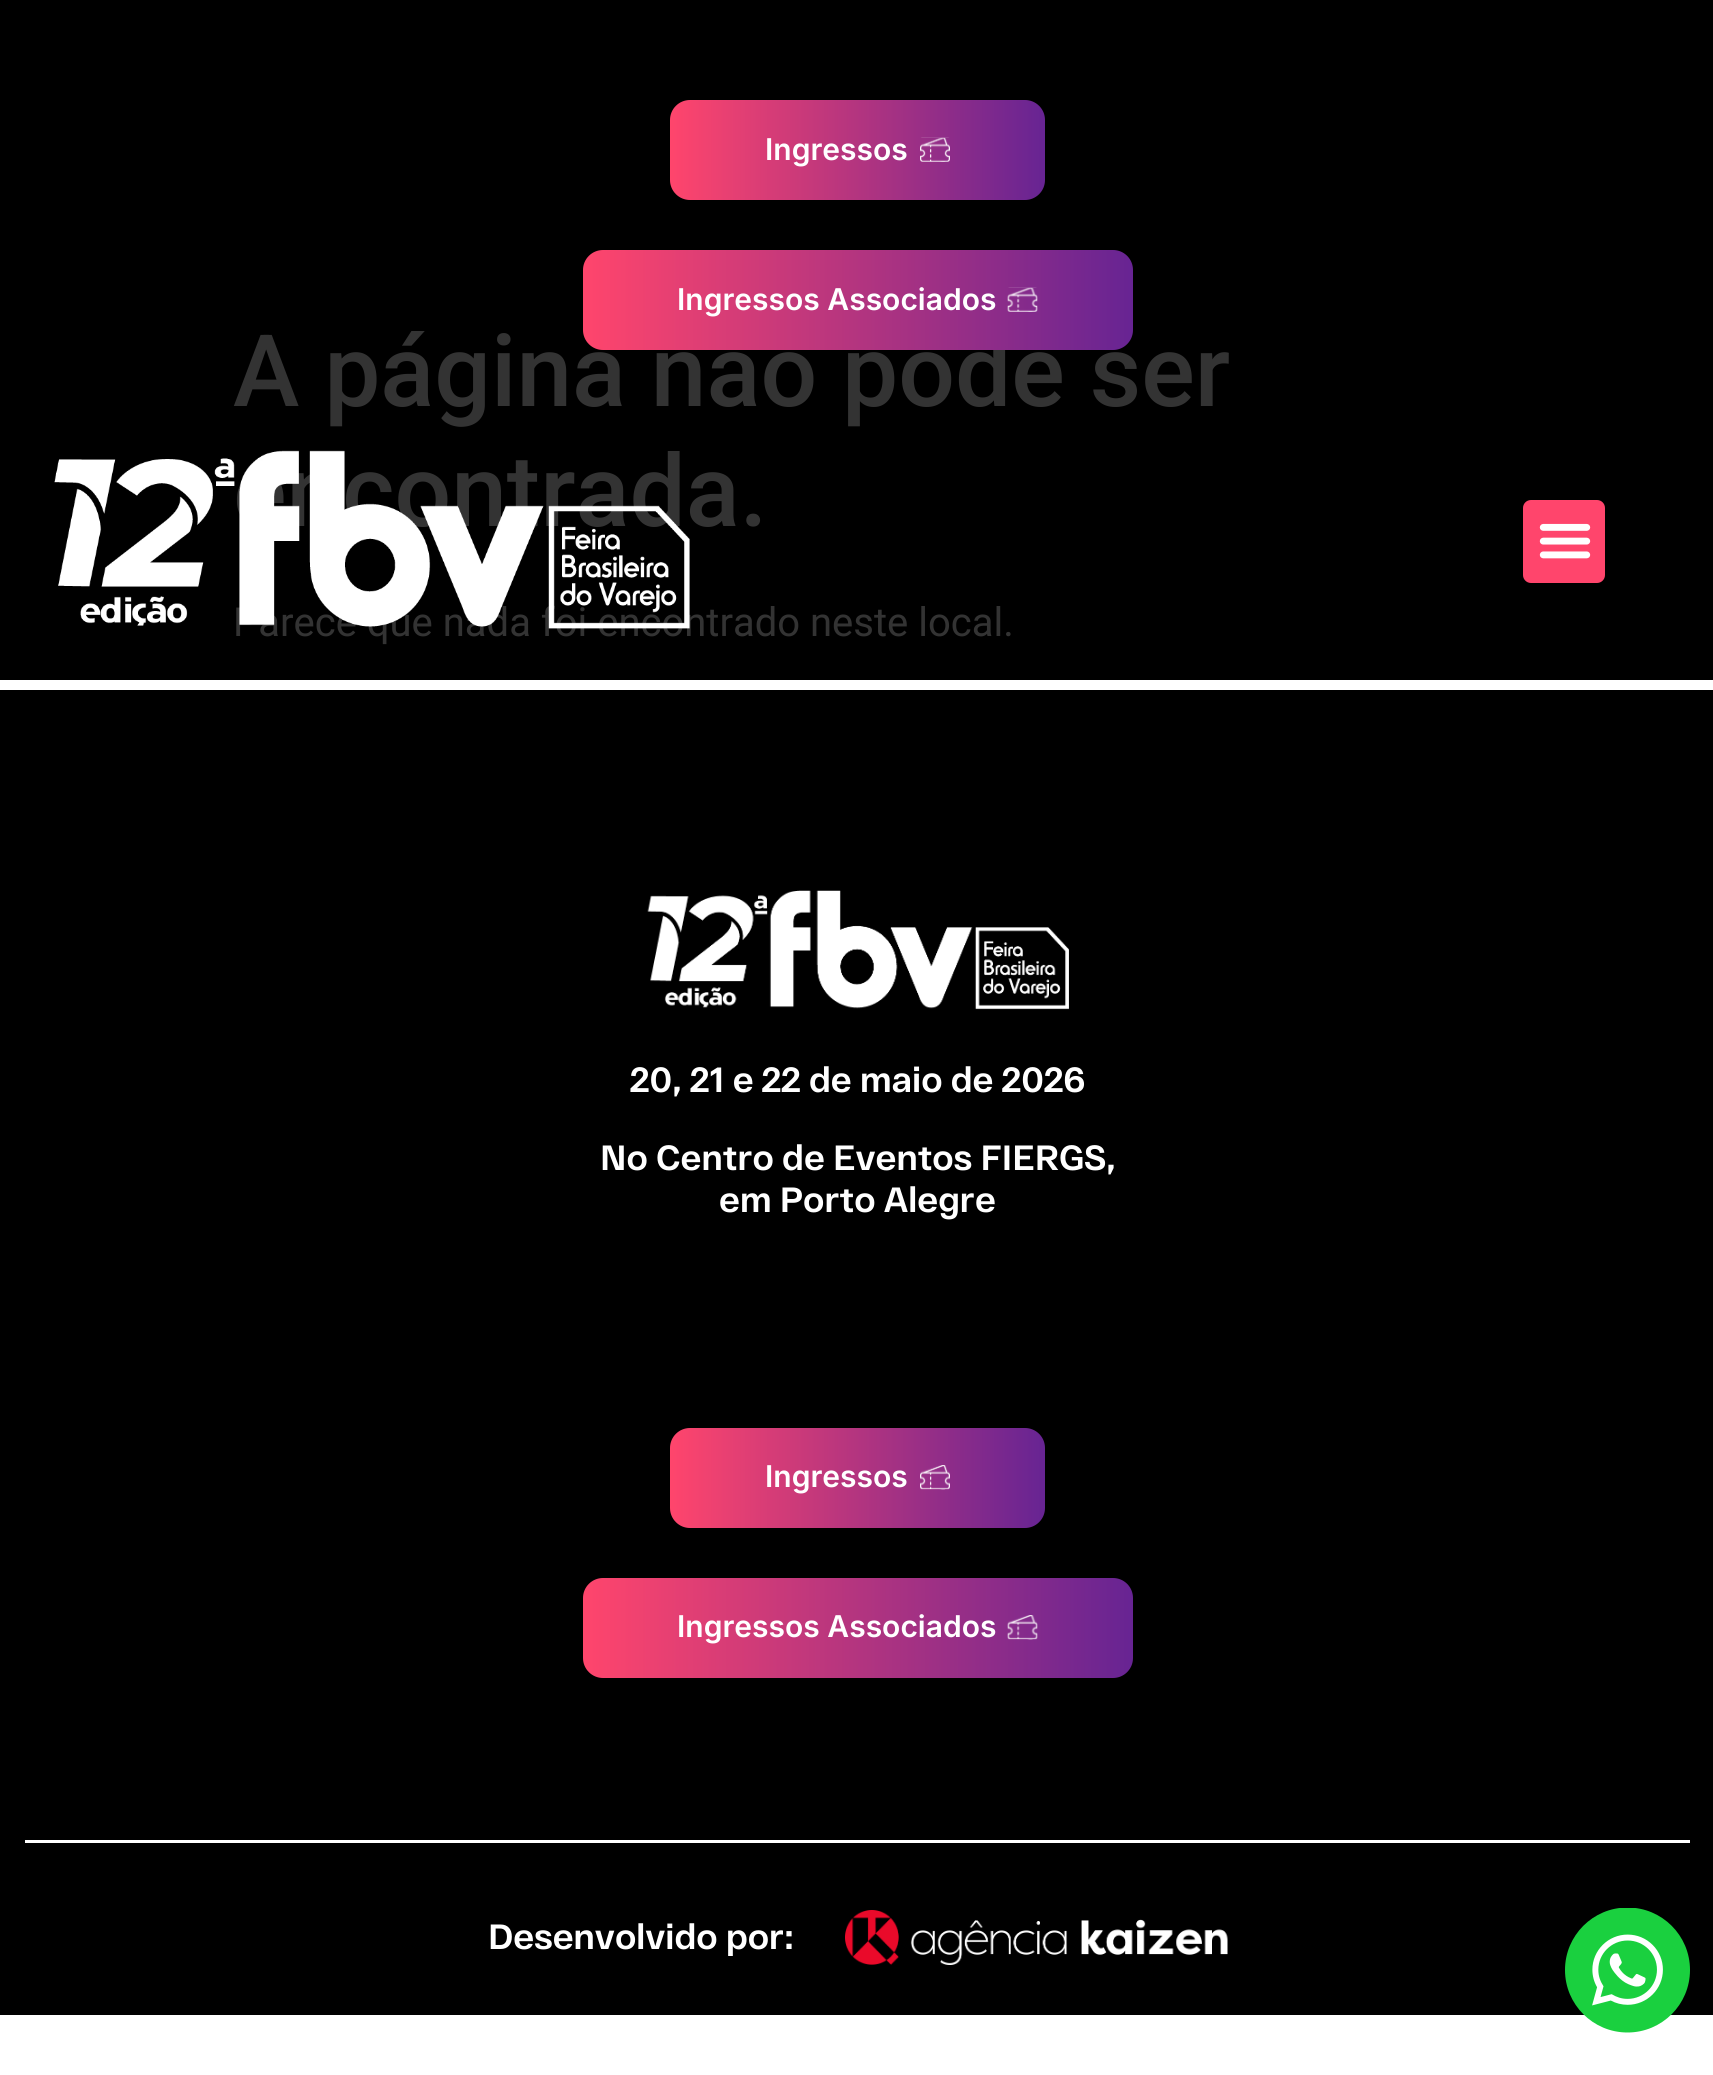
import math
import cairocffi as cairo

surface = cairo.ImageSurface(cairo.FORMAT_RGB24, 1713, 2075)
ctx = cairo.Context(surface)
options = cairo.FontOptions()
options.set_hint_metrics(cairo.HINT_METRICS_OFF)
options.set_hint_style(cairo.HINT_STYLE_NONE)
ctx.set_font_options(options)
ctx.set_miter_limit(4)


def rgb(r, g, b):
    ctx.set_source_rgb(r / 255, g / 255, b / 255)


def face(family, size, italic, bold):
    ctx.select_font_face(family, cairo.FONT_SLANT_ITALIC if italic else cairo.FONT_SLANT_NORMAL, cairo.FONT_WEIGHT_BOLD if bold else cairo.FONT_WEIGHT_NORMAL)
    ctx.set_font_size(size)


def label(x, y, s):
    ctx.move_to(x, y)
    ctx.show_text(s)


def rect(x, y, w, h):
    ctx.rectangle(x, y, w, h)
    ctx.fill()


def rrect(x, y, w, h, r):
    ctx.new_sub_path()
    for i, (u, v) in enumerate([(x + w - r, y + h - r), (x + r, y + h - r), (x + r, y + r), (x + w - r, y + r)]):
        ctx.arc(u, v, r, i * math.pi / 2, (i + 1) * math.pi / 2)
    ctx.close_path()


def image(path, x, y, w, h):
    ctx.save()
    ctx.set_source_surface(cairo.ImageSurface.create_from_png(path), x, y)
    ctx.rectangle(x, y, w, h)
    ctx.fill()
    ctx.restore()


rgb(255, 255, 255)
ctx.paint()
rgb(0, 0, 0)
rect(0, 0, 1713, 680)
gradient = cairo.LinearGradient(670, 150, 1045, 150)
gradient.add_color_stop_rgba(0, 1, 0.271, 0.424, 1)
gradient.add_color_stop_rgba(1, 0.404, 0.141, 0.576, 1)
ctx.set_source(gradient)
rrect(670, 100, 375, 100, 20)
ctx.fill()
face('Inter SemiBold', 30, 0, 0)
rgb(255, 255, 255)
label(765, 160, 'Ingressos')
image('image0.png', 920, 137, 30, 25)
face('Roboto Medium', 100, 0, 0)
rgb(51, 51, 51)
label(233, 406, 'A página não pode ser')
gradient = cairo.LinearGradient(583, 300, 1133, 300)
gradient.add_color_stop_rgba(0, 1, 0.271, 0.424, 1)
gradient.add_color_stop_rgba(1, 0.404, 0.141, 0.576, 1)
ctx.set_source(gradient)
rrect(583, 250, 550, 100, 20)
ctx.fill()
face('Inter SemiBold', 30, 0, 0)
rgb(255, 255, 255)
label(677, 310, 'Ingressos Associados')
image('image1.png', 1007, 287, 31, 25)
face('Roboto Medium', 100, 0, 0)
rgb(51, 51, 51)
label(233, 526, 'encontrada.')
face('Roboto', 40, 0, 0)
label(233, 636, 'Parece que nada foi encontrado neste local.')
image('image2.png', 54, 450, 636, 179)
rgb(255, 69, 108)
rrect(1523, 500, 82, 83, 8)
ctx.fill()
image('image3.png', 1539, 523, 52, 36)
rgb(0, 0, 0)
rect(0, 690, 1713, 1325)
image('image4.png', 647, 890, 422, 120)
face('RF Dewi', 35, 0, 1)
rgb(255, 255, 255)
label(630, 1092, '20, 21 e 22 de maio de 2026')
label(600, 1170, 'No Centro de Eventos FIERGS,')
label(719, 1212, 'em Porto Alegre')
gradient = cairo.LinearGradient(670, 1478, 1045, 1478)
gradient.add_color_stop_rgba(0, 1, 0.271, 0.424, 1)
gradient.add_color_stop_rgba(1, 0.404, 0.141, 0.576, 1)
ctx.set_source(gradient)
rrect(670, 1428, 375, 100, 20)
ctx.fill()
face('Inter SemiBold', 30, 0, 0)
rgb(255, 255, 255)
label(765, 1487, 'Ingressos')
image('image5.png', 920, 1465, 30, 25)
gradient = cairo.LinearGradient(583, 1628, 1133, 1628)
gradient.add_color_stop_rgba(0, 1, 0.271, 0.424, 1)
gradient.add_color_stop_rgba(1, 0.404, 0.141, 0.576, 1)
ctx.set_source(gradient)
rrect(583, 1578, 550, 100, 20)
ctx.fill()
rgb(255, 255, 255)
label(677, 1637, 'Ingressos Associados')
image('image6.png', 1007, 1615, 31, 25)
rect(25, 1840, 1665, 3)
face('RF Dewi', 35, 0, 1)
label(488, 1949, 'Desenvolvido por:')
image('image7.png', 845, 1910, 383, 55)
image('image8.png', 1565, 1908, 125, 125)
surface.write_to_png('render.png')
